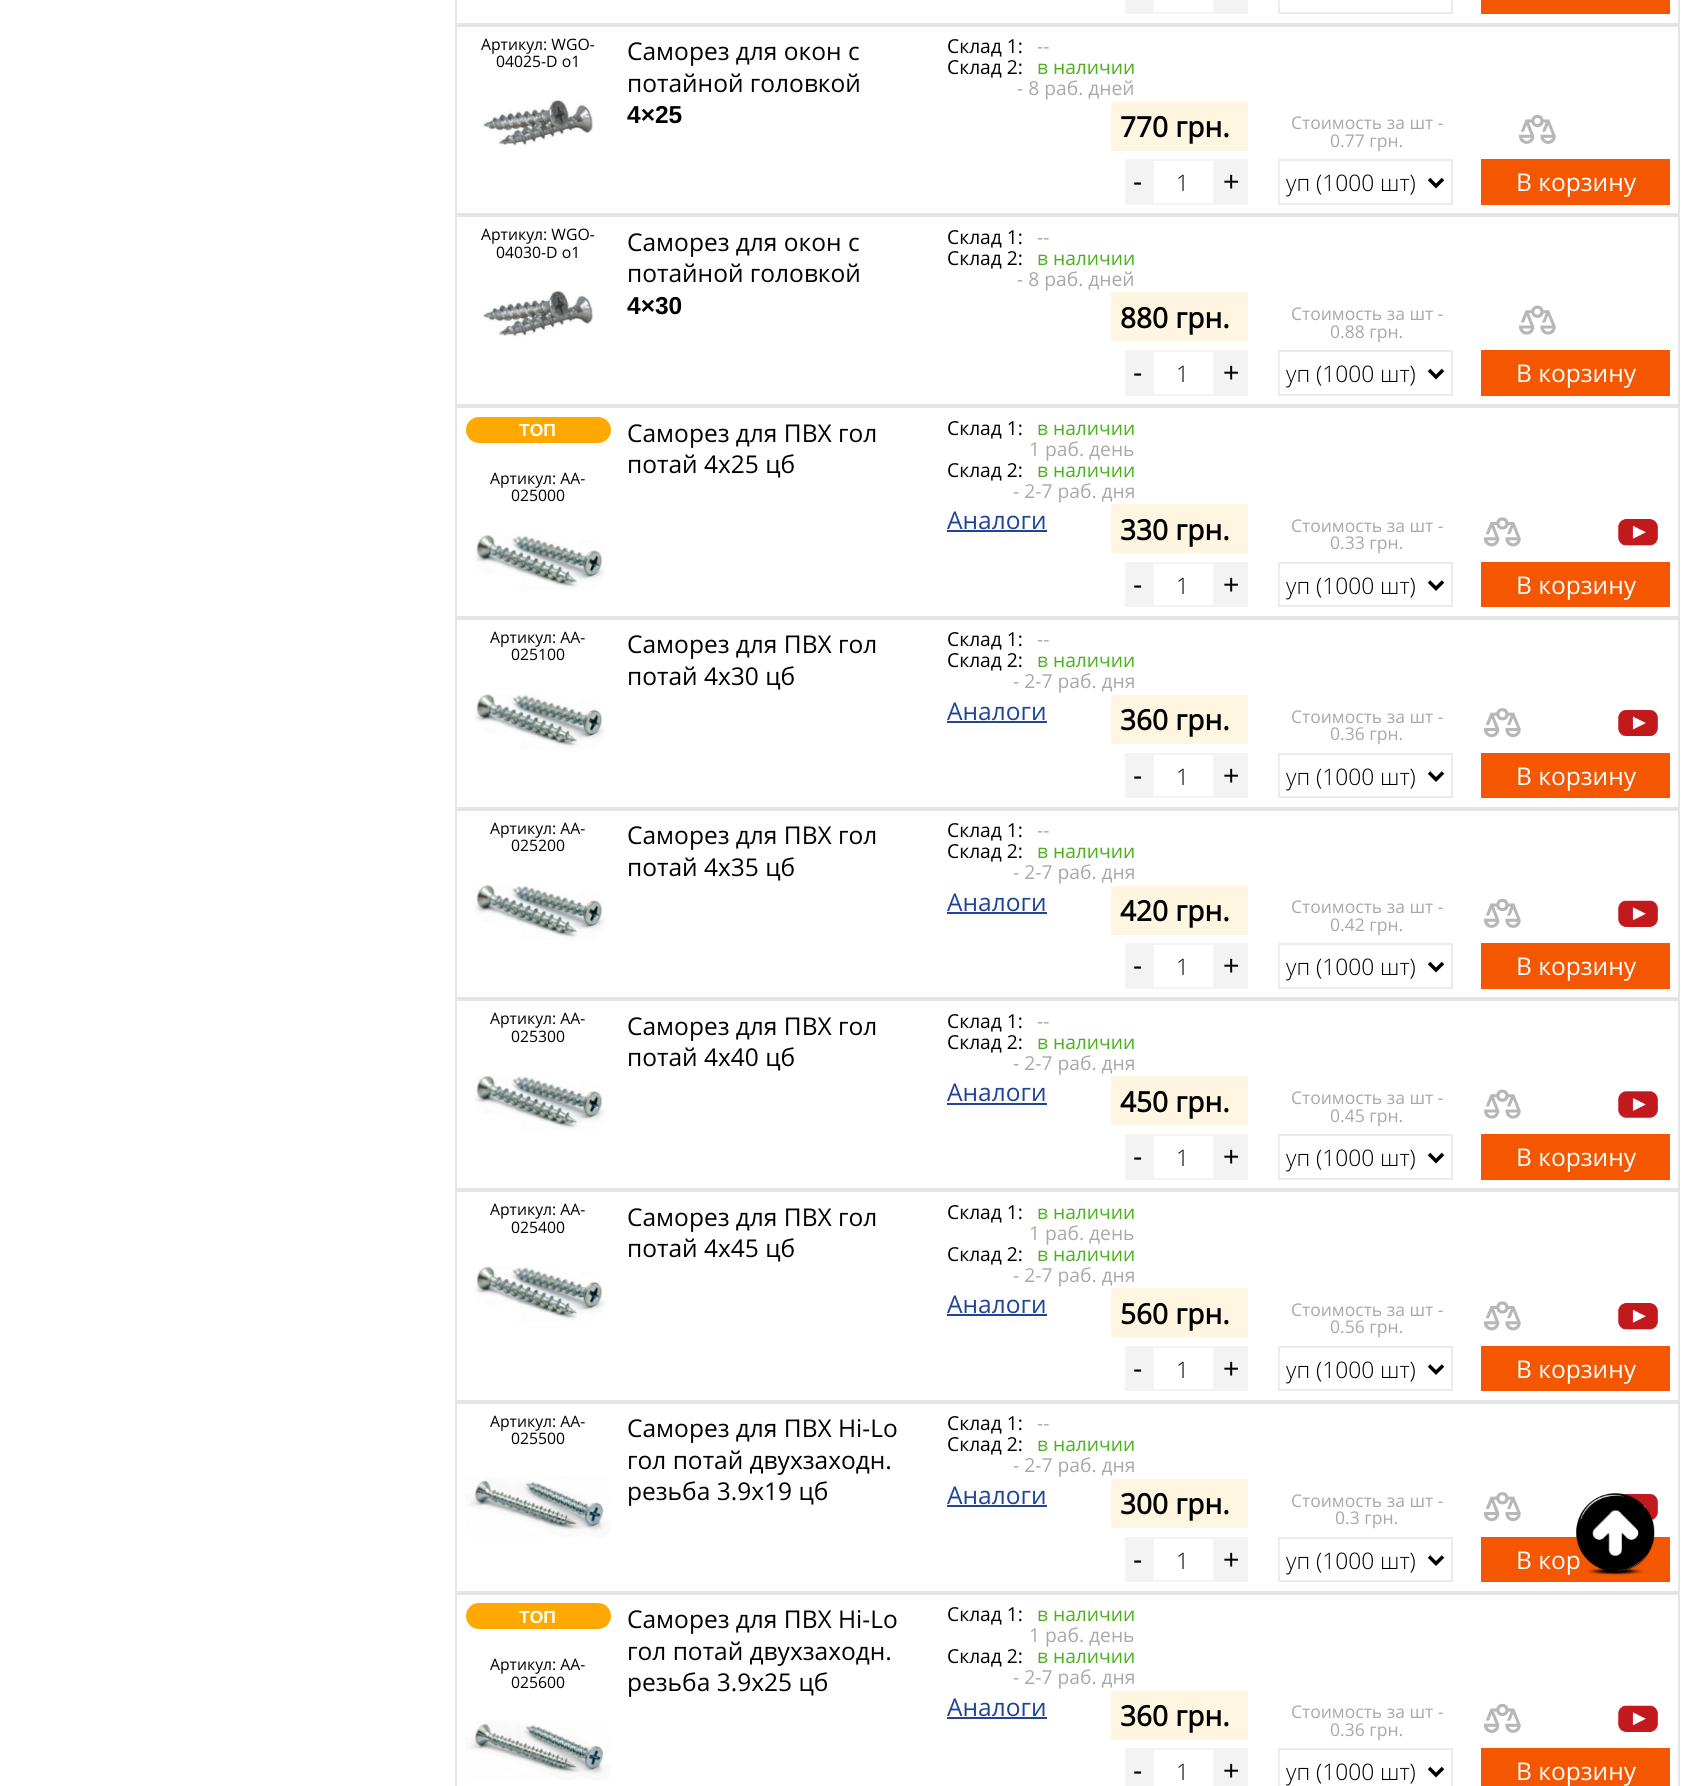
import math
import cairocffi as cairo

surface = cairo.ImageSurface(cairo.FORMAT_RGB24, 1694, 1786)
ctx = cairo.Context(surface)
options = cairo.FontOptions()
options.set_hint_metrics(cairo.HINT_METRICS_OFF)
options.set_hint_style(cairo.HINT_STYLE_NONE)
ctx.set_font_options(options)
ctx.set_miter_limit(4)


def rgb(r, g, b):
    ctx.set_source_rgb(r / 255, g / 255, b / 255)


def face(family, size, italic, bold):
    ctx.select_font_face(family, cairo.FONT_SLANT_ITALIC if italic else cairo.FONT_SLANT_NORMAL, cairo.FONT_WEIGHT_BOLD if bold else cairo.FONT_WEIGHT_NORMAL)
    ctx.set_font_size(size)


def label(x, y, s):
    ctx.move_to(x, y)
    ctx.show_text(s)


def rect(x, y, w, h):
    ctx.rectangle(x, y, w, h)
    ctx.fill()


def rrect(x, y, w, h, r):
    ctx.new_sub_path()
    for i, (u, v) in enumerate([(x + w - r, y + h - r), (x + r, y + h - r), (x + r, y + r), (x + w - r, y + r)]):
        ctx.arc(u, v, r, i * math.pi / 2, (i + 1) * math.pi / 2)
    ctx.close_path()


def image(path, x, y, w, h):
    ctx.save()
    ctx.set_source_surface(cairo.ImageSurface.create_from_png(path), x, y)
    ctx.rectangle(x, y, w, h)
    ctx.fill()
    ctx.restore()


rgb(255, 255, 255)
ctx.paint()
ctx.rectangle(456, -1, 1223, 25)
rgb(229, 229, 229)
ctx.stroke()
rgb(243, 243, 243)
rect(1125, 0, 27, 14)
ctx.rectangle(1153, -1, 61, 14)
ctx.stroke()
rect(1215, 0, 33, 14)
ctx.rectangle(1279, -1, 173, 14)
rgb(235, 235, 235)
ctx.stroke()
rgb(245, 86, 0)
rect(1481, 0, 189, 14)
ctx.rectangle(456, 26, 1223, 188)
rgb(229, 229, 229)
ctx.stroke()
face('Open Sans', 15.75, 0, 0)
rgb(0, 0, 0)
label(481, 50, 'Артикул: WGO-')
label(496, 67, '04025-D o1')
image('image0.png', 483, 100, 110, 46)
face('Open Sans', 24.5, 0, 0)
label(627, 60, 'Саморез для окон с')
label(627, 92, 'потайной головкой')
face('Liberation Sans', 24.5, 0, 1)
label(627, 123, '4×25')
face('Open Sans', 19.25, 0, 0)
label(947, 53, 'Склад 1:')
rgb(169, 169, 169)
label(1037, 53, '--')
rgb(0, 0, 0)
label(947, 74, 'Склад 2:')
rgb(73, 177, 26)
label(1037, 74, 'в наличии')
rgb(169, 169, 169)
label(1017, 95, '- 8 раб. дней')
rgb(255, 246, 225)
rect(1111, 102, 137, 49)
face('Open Sans', 28, 0, 1)
rgb(0, 0, 0)
label(1120, 137, '770 грн.')
face('Open Sans', 17.5, 0, 0)
rgb(169, 169, 169)
label(1291, 129, 'Стоимость за шт -')
label(1330, 147, '0.77 грн.')
image('image1.png', 1519, 114, 37, 30)
rgb(243, 243, 243)
rect(1125, 159, 27, 46)
face('Liberation Sans', 28, 0, 0)
rgb(0, 0, 0)
label(1133, 191, '-')
ctx.rectangle(1153, 160, 61, 44)
rgb(243, 243, 243)
ctx.stroke()
face('Open Sans Light', 22.75, 0, 0)
rgb(0, 0, 0)
label(1176, 191, '1')
rgb(243, 243, 243)
rect(1215, 159, 33, 46)
face('Liberation Sans', 28, 0, 0)
rgb(0, 0, 0)
label(1223, 191, '+')
ctx.rectangle(1279, 160, 173, 44)
rgb(235, 235, 235)
ctx.stroke()
ctx.new_path()
ctx.move_to(1429, 179)
ctx.line_to(1436, 186)
ctx.line_to(1443, 179)
rgb(0, 0, 0)
ctx.set_line_width(3.5)
ctx.stroke()
ctx.save()
ctx.rectangle(1286, 165, 137, 35)
ctx.clip()
face('Open Sans Light', 22.75, 0, 0)
label(1286, 191, 'уп (1000 шт)')
ctx.restore()
rgb(245, 86, 0)
rect(1481, 159, 189, 46)
face('Open Sans', 24.5, 0, 0)
rgb(255, 255, 255)
label(1516, 191, 'В корзину')
ctx.rectangle(456, 216, 1223, 189)
rgb(229, 229, 229)
ctx.set_line_width(2)
ctx.stroke()
face('Open Sans', 15.75, 0, 0)
rgb(0, 0, 0)
label(481, 240, 'Артикул: WGO-')
label(496, 258, '04030-D o1')
image('image2.png', 483, 290, 110, 47)
face('Open Sans', 24.5, 0, 0)
label(627, 251, 'Саморез для окон с')
label(627, 282, 'потайной головкой')
face('Liberation Sans', 24.5, 0, 1)
label(627, 314, '4×30')
face('Open Sans', 19.25, 0, 0)
label(947, 244, 'Склад 1:')
rgb(169, 169, 169)
label(1037, 244, '--')
rgb(0, 0, 0)
label(947, 265, 'Склад 2:')
rgb(73, 177, 26)
label(1037, 265, 'в наличии')
rgb(169, 169, 169)
label(1017, 286, '- 8 раб. дней')
rgb(255, 246, 225)
rect(1111, 292, 137, 49)
face('Open Sans', 28, 0, 1)
rgb(0, 0, 0)
label(1120, 328, '880 грн.')
face('Open Sans', 17.5, 0, 0)
rgb(169, 169, 169)
label(1291, 320, 'Стоимость за шт -')
label(1330, 338, '0.88 грн.')
image('image3.png', 1519, 305, 37, 30)
rgb(243, 243, 243)
rect(1125, 350, 27, 46)
face('Liberation Sans', 28, 0, 0)
rgb(0, 0, 0)
label(1133, 382, '-')
ctx.rectangle(1153, 351, 61, 44)
rgb(243, 243, 243)
ctx.stroke()
face('Open Sans Light', 22.75, 0, 0)
rgb(0, 0, 0)
label(1176, 382, '1')
rgb(243, 243, 243)
rect(1215, 350, 33, 46)
face('Liberation Sans', 28, 0, 0)
rgb(0, 0, 0)
label(1223, 382, '+')
ctx.rectangle(1279, 351, 173, 44)
rgb(235, 235, 235)
ctx.stroke()
ctx.new_path()
ctx.move_to(1429, 370)
ctx.line_to(1436, 377)
ctx.line_to(1443, 370)
rgb(0, 0, 0)
ctx.set_line_width(3.5)
ctx.stroke()
ctx.save()
ctx.rectangle(1286, 355, 137, 35)
ctx.clip()
face('Open Sans Light', 22.75, 0, 0)
label(1286, 382, 'уп (1000 шт)')
ctx.restore()
rgb(245, 86, 0)
rect(1481, 350, 189, 46)
face('Open Sans', 24.5, 0, 0)
rgb(255, 255, 255)
label(1516, 382, 'В корзину')
ctx.rectangle(456, 407, 1223, 210)
rgb(229, 229, 229)
ctx.set_line_width(2)
ctx.stroke()
rgb(255, 169, 0)
rrect(466, 417, 145, 26, 13)
ctx.fill()
face('Liberation Sans', 17.5, 0, 1)
rgb(255, 255, 255)
label(519, 436, 'ТОП')
face('Open Sans', 15.75, 0, 0)
rgb(0, 0, 0)
label(490, 484, 'Артикул: AA-')
label(511, 501, '025000')
image('image4.png', 474, 535, 132, 55)
face('Open Sans', 24.5, 0, 0)
label(627, 442, 'Cаморез для ПВХ гол')
label(627, 473, 'потай 4x25 цб')
face('Open Sans', 19.25, 0, 0)
label(947, 435, 'Склад 1:')
rgb(73, 177, 26)
label(1037, 435, 'в наличии')
rgb(169, 169, 169)
label(1029, 456, '1 раб. день')
rgb(0, 0, 0)
label(947, 477, 'Склад 2:')
rgb(73, 177, 26)
label(1037, 477, 'в наличии')
rgb(169, 169, 169)
label(1013, 498, '- 2-7 раб. дня')
face('Open Sans', 24.5, 0, 0)
rgb(33, 68, 150)
label(947, 529, 'Аналоги')
rect(947, 530, 100, 2)
rgb(255, 246, 225)
rect(1111, 504, 137, 49)
face('Open Sans', 28, 0, 1)
rgb(0, 0, 0)
label(1120, 540, '330 грн.')
face('Open Sans', 17.5, 0, 0)
rgb(169, 169, 169)
label(1291, 532, 'Стоимость за шт -')
label(1330, 549, '0.33 грн.')
image('image5.png', 1484, 517, 37, 30)
image('image6.png', 1618, 519, 40, 27)
rgb(243, 243, 243)
rect(1125, 562, 27, 45)
face('Liberation Sans', 28, 0, 0)
rgb(0, 0, 0)
label(1133, 594, '-')
ctx.rectangle(1153, 563, 61, 43)
rgb(243, 243, 243)
ctx.stroke()
face('Open Sans Light', 22.75, 0, 0)
rgb(0, 0, 0)
label(1176, 594, '1')
rgb(243, 243, 243)
rect(1215, 562, 33, 45)
face('Liberation Sans', 28, 0, 0)
rgb(0, 0, 0)
label(1223, 594, '+')
ctx.rectangle(1279, 563, 173, 43)
rgb(235, 235, 235)
ctx.stroke()
ctx.new_path()
ctx.move_to(1429, 581.5)
ctx.line_to(1436, 588.5)
ctx.line_to(1443, 581.5)
rgb(0, 0, 0)
ctx.set_line_width(3.5)
ctx.stroke()
ctx.save()
ctx.rectangle(1286, 567, 137, 35)
ctx.clip()
face('Open Sans Light', 22.75, 0, 0)
label(1286, 594, 'уп (1000 шт)')
ctx.restore()
rgb(245, 86, 0)
rect(1481, 562, 189, 45)
face('Open Sans', 24.5, 0, 0)
rgb(255, 255, 255)
label(1516, 594, 'В корзину')
ctx.rectangle(456, 619, 1223, 189)
rgb(229, 229, 229)
ctx.set_line_width(2)
ctx.stroke()
face('Open Sans', 15.75, 0, 0)
rgb(0, 0, 0)
label(490, 643, 'Артикул: AA-')
label(511, 660, '025100')
image('image7.png', 474, 694, 132, 55)
face('Open Sans', 24.5, 0, 0)
label(627, 653, 'Cаморез для ПВХ гол')
label(627, 685, 'потай 4x30 цб')
face('Open Sans', 19.25, 0, 0)
label(947, 646, 'Склад 1:')
rgb(169, 169, 169)
label(1037, 646, '--')
rgb(0, 0, 0)
label(947, 667, 'Склад 2:')
rgb(73, 177, 26)
label(1037, 667, 'в наличии')
rgb(169, 169, 169)
label(1013, 688, '- 2-7 раб. дня')
face('Open Sans', 24.5, 0, 0)
rgb(33, 68, 150)
label(947, 720, 'Аналоги')
rect(947, 721, 100, 2)
rgb(255, 246, 225)
rect(1111, 695, 137, 49)
face('Open Sans', 28, 0, 1)
rgb(0, 0, 0)
label(1120, 730, '360 грн.')
face('Open Sans', 17.5, 0, 0)
rgb(169, 169, 169)
label(1291, 723, 'Стоимость за шт -')
label(1330, 740, '0.36 грн.')
image('image8.png', 1484, 708, 37, 30)
image('image9.png', 1618, 710, 40, 26)
rgb(243, 243, 243)
rect(1125, 753, 27, 45)
face('Liberation Sans', 28, 0, 0)
rgb(0, 0, 0)
label(1133, 785, '-')
ctx.rectangle(1153, 754, 61, 43)
rgb(243, 243, 243)
ctx.stroke()
face('Open Sans Light', 22.75, 0, 0)
rgb(0, 0, 0)
label(1176, 785, '1')
rgb(243, 243, 243)
rect(1215, 753, 33, 45)
face('Liberation Sans', 28, 0, 0)
rgb(0, 0, 0)
label(1223, 785, '+')
ctx.rectangle(1279, 754, 173, 43)
rgb(235, 235, 235)
ctx.stroke()
ctx.new_path()
ctx.move_to(1429, 772.5)
ctx.line_to(1436, 779.5)
ctx.line_to(1443, 772.5)
rgb(0, 0, 0)
ctx.set_line_width(3.5)
ctx.stroke()
ctx.save()
ctx.rectangle(1286, 758, 137, 35)
ctx.clip()
face('Open Sans Light', 22.75, 0, 0)
label(1286, 785, 'уп (1000 шт)')
ctx.restore()
rgb(245, 86, 0)
rect(1481, 753, 189, 45)
face('Open Sans', 24.5, 0, 0)
rgb(255, 255, 255)
label(1516, 785, 'В корзину')
ctx.rectangle(456, 810, 1223, 188)
rgb(229, 229, 229)
ctx.set_line_width(2)
ctx.stroke()
face('Open Sans', 15.75, 0, 0)
rgb(0, 0, 0)
label(490, 834, 'Артикул: AA-')
label(511, 851, '025200')
image('image4.png', 474, 885, 132, 55)
face('Open Sans', 24.5, 0, 0)
label(627, 844, 'Cаморез для ПВХ гол')
label(627, 876, 'потай 4x35 цб')
face('Open Sans', 19.25, 0, 0)
label(947, 837, 'Склад 1:')
rgb(169, 169, 169)
label(1037, 837, '--')
rgb(0, 0, 0)
label(947, 858, 'Склад 2:')
rgb(73, 177, 26)
label(1037, 858, 'в наличии')
rgb(169, 169, 169)
label(1013, 879, '- 2-7 раб. дня')
face('Open Sans', 24.5, 0, 0)
rgb(33, 68, 150)
label(947, 911, 'Аналоги')
rect(947, 912, 100, 2)
rgb(255, 246, 225)
rect(1111, 886, 137, 49)
face('Open Sans', 28, 0, 1)
rgb(0, 0, 0)
label(1120, 921, '420 грн.')
face('Open Sans', 17.5, 0, 0)
rgb(169, 169, 169)
label(1291, 913, 'Стоимость за шт -')
label(1330, 931, '0.42 грн.')
image('image1.png', 1484, 898, 37, 30)
image('image10.png', 1618, 900, 40, 27)
rgb(243, 243, 243)
rect(1125, 943, 27, 46)
face('Liberation Sans', 28, 0, 0)
rgb(0, 0, 0)
label(1133, 975, '-')
ctx.rectangle(1153, 944, 61, 44)
rgb(243, 243, 243)
ctx.stroke()
face('Open Sans Light', 22.75, 0, 0)
rgb(0, 0, 0)
label(1176, 975, '1')
rgb(243, 243, 243)
rect(1215, 943, 33, 46)
face('Liberation Sans', 28, 0, 0)
rgb(0, 0, 0)
label(1223, 975, '+')
ctx.rectangle(1279, 944, 173, 44)
rgb(235, 235, 235)
ctx.stroke()
ctx.new_path()
ctx.move_to(1429, 963)
ctx.line_to(1436, 970)
ctx.line_to(1443, 963)
rgb(0, 0, 0)
ctx.set_line_width(3.5)
ctx.stroke()
ctx.save()
ctx.rectangle(1286, 949, 137, 35)
ctx.clip()
face('Open Sans Light', 22.75, 0, 0)
label(1286, 975, 'уп (1000 шт)')
ctx.restore()
rgb(245, 86, 0)
rect(1481, 943, 189, 46)
face('Open Sans', 24.5, 0, 0)
rgb(255, 255, 255)
label(1516, 975, 'В корзину')
ctx.rectangle(456, 1000, 1223, 189)
rgb(229, 229, 229)
ctx.set_line_width(2)
ctx.stroke()
face('Open Sans', 15.75, 0, 0)
rgb(0, 0, 0)
label(490, 1024, 'Артикул: AA-')
label(511, 1042, '025300')
image('image11.png', 474, 1075, 132, 56)
face('Open Sans', 24.5, 0, 0)
label(627, 1035, 'Cаморез для ПВХ гол')
label(627, 1066, 'потай 4x40 цб')
face('Open Sans', 19.25, 0, 0)
label(947, 1028, 'Склад 1:')
rgb(169, 169, 169)
label(1037, 1028, '--')
rgb(0, 0, 0)
label(947, 1049, 'Склад 2:')
rgb(73, 177, 26)
label(1037, 1049, 'в наличии')
rgb(169, 169, 169)
label(1013, 1070, '- 2-7 раб. дня')
face('Open Sans', 24.5, 0, 0)
rgb(33, 68, 150)
label(947, 1101, 'Аналоги')
rect(947, 1103, 100, 2)
rgb(255, 246, 225)
rect(1111, 1076, 137, 49)
face('Open Sans', 28, 0, 1)
rgb(0, 0, 0)
label(1120, 1112, '450 грн.')
face('Open Sans', 17.5, 0, 0)
rgb(169, 169, 169)
label(1291, 1104, 'Стоимость за шт -')
label(1330, 1122, '0.45 грн.')
image('image3.png', 1484, 1089, 37, 30)
image('image12.png', 1618, 1091, 40, 27)
rgb(243, 243, 243)
rect(1125, 1134, 27, 46)
face('Liberation Sans', 28, 0, 0)
rgb(0, 0, 0)
label(1133, 1166, '-')
ctx.rectangle(1153, 1135, 61, 44)
rgb(243, 243, 243)
ctx.stroke()
face('Open Sans Light', 22.75, 0, 0)
rgb(0, 0, 0)
label(1176, 1166, '1')
rgb(243, 243, 243)
rect(1215, 1134, 33, 46)
face('Liberation Sans', 28, 0, 0)
rgb(0, 0, 0)
label(1223, 1166, '+')
ctx.rectangle(1279, 1135, 173, 44)
rgb(235, 235, 235)
ctx.stroke()
ctx.new_path()
ctx.move_to(1429, 1154)
ctx.line_to(1436, 1161)
ctx.line_to(1443, 1154)
rgb(0, 0, 0)
ctx.set_line_width(3.5)
ctx.stroke()
ctx.save()
ctx.rectangle(1286, 1139, 137, 35)
ctx.clip()
face('Open Sans Light', 22.75, 0, 0)
label(1286, 1166, 'уп (1000 шт)')
ctx.restore()
rgb(245, 86, 0)
rect(1481, 1134, 189, 46)
face('Open Sans', 24.5, 0, 0)
rgb(255, 255, 255)
label(1516, 1166, 'В корзину')
ctx.rectangle(456, 1191, 1223, 210)
rgb(229, 229, 229)
ctx.set_line_width(2)
ctx.stroke()
face('Open Sans', 15.75, 0, 0)
rgb(0, 0, 0)
label(490, 1215, 'Артикул: AA-')
label(511, 1233, '025400')
image('image13.png', 474, 1266, 132, 56)
face('Open Sans', 24.5, 0, 0)
label(627, 1226, 'Cаморез для ПВХ гол')
label(627, 1257, 'потай 4x45 цб')
face('Open Sans', 19.25, 0, 0)
label(947, 1219, 'Склад 1:')
rgb(73, 177, 26)
label(1037, 1219, 'в наличии')
rgb(169, 169, 169)
label(1029, 1240, '1 раб. день')
rgb(0, 0, 0)
label(947, 1261, 'Склад 2:')
rgb(73, 177, 26)
label(1037, 1261, 'в наличии')
rgb(169, 169, 169)
label(1013, 1282, '- 2-7 раб. дня')
face('Open Sans', 24.5, 0, 0)
rgb(33, 68, 150)
label(947, 1313, 'Аналоги')
rect(947, 1314, 100, 2)
rgb(255, 246, 225)
rect(1111, 1288, 137, 49)
face('Open Sans', 28, 0, 1)
rgb(0, 0, 0)
label(1120, 1324, '560 грн.')
face('Open Sans', 17.5, 0, 0)
rgb(169, 169, 169)
label(1291, 1316, 'Стоимость за шт -')
label(1330, 1333, '0.56 грн.')
image('image5.png', 1484, 1301, 37, 30)
image('image6.png', 1618, 1303, 40, 27)
rgb(243, 243, 243)
rect(1125, 1346, 27, 45)
face('Liberation Sans', 28, 0, 0)
rgb(0, 0, 0)
label(1133, 1378, '-')
ctx.rectangle(1153, 1347, 61, 43)
rgb(243, 243, 243)
ctx.stroke()
face('Open Sans Light', 22.75, 0, 0)
rgb(0, 0, 0)
label(1176, 1378, '1')
rgb(243, 243, 243)
rect(1215, 1346, 33, 45)
face('Liberation Sans', 28, 0, 0)
rgb(0, 0, 0)
label(1223, 1378, '+')
ctx.rectangle(1279, 1347, 173, 43)
rgb(235, 235, 235)
ctx.stroke()
ctx.new_path()
ctx.move_to(1429, 1365.5)
ctx.line_to(1436, 1372.5)
ctx.line_to(1443, 1365.5)
rgb(0, 0, 0)
ctx.set_line_width(3.5)
ctx.stroke()
ctx.save()
ctx.rectangle(1286, 1351, 137, 35)
ctx.clip()
face('Open Sans Light', 22.75, 0, 0)
label(1286, 1378, 'уп (1000 шт)')
ctx.restore()
rgb(245, 86, 0)
rect(1481, 1346, 189, 45)
face('Open Sans', 24.5, 0, 0)
rgb(255, 255, 255)
label(1516, 1378, 'В корзину')
ctx.rectangle(456, 1403, 1223, 189)
rgb(229, 229, 229)
ctx.set_line_width(2)
ctx.stroke()
face('Open Sans', 15.75, 0, 0)
rgb(0, 0, 0)
label(490, 1427, 'Артикул: AA-')
label(511, 1444, '025500')
image('image14.png', 465, 1476, 146, 62)
face('Open Sans', 24.5, 0, 0)
label(627, 1437, 'Саморез для ПВХ Hi-Lo')
label(627, 1469, 'гол потай двухзаходн.')
label(627, 1500, 'резьба 3.9x19 цб')
face('Open Sans', 19.25, 0, 0)
label(947, 1430, 'Склад 1:')
rgb(169, 169, 169)
label(1037, 1430, '--')
rgb(0, 0, 0)
label(947, 1451, 'Склад 2:')
rgb(73, 177, 26)
label(1037, 1451, 'в наличии')
rgb(169, 169, 169)
label(1013, 1472, '- 2-7 раб. дня')
face('Open Sans', 24.5, 0, 0)
rgb(33, 68, 150)
label(947, 1504, 'Аналоги')
rect(947, 1505, 100, 2)
rgb(255, 246, 225)
rect(1111, 1479, 137, 49)
face('Open Sans', 28, 0, 1)
rgb(0, 0, 0)
label(1120, 1514, '300 грн.')
face('Open Sans', 17.5, 0, 0)
rgb(169, 169, 169)
label(1291, 1507, 'Стоимость за шт -')
label(1335, 1524, '0.3 грн.')
image('image8.png', 1484, 1492, 37, 30)
image('image15.png', 1622, 1494, 36, 26)
rgb(243, 243, 243)
rect(1125, 1537, 27, 45)
face('Liberation Sans', 28, 0, 0)
rgb(0, 0, 0)
label(1133, 1569, '-')
ctx.rectangle(1153, 1538, 61, 43)
rgb(243, 243, 243)
ctx.stroke()
face('Open Sans Light', 22.75, 0, 0)
rgb(0, 0, 0)
label(1176, 1569, '1')
rgb(243, 243, 243)
rect(1215, 1537, 33, 45)
face('Liberation Sans', 28, 0, 0)
rgb(0, 0, 0)
label(1223, 1569, '+')
ctx.rectangle(1279, 1538, 173, 43)
rgb(235, 235, 235)
ctx.stroke()
ctx.new_path()
ctx.move_to(1429, 1556.5)
ctx.line_to(1436, 1563.5)
ctx.line_to(1443, 1556.5)
rgb(0, 0, 0)
ctx.set_line_width(3.5)
ctx.stroke()
ctx.save()
ctx.rectangle(1286, 1542, 137, 35)
ctx.clip()
face('Open Sans Light', 22.75, 0, 0)
label(1286, 1569, 'уп (1000 шт)')
ctx.restore()
rgb(245, 86, 0)
rect(1481, 1537, 189, 45)
face('Open Sans', 24.5, 0, 0)
rgb(255, 255, 255)
label(1516, 1569, 'В кор')
ctx.rectangle(456, 1594, 1223, 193)
rgb(229, 229, 229)
ctx.set_line_width(2)
ctx.stroke()
rgb(255, 169, 0)
rrect(466, 1603, 145, 26, 13)
ctx.fill()
face('Liberation Sans', 17.5, 0, 1)
rgb(255, 255, 255)
label(519, 1623, 'ТОП')
face('Open Sans', 15.75, 0, 0)
rgb(0, 0, 0)
label(490, 1670, 'Артикул: AA-')
label(511, 1688, '025600')
image('image16.png', 465, 1720, 146, 61)
face('Open Sans', 24.5, 0, 0)
label(627, 1628, 'Саморез для ПВХ Hi-Lo')
label(627, 1660, 'гол потай двухзаходн.')
label(627, 1691, 'резьба 3.9x25 цб')
face('Open Sans', 19.25, 0, 0)
label(947, 1621, 'Склад 1:')
rgb(73, 177, 26)
label(1037, 1621, 'в наличии')
rgb(169, 169, 169)
label(1029, 1642, '1 раб. день')
rgb(0, 0, 0)
label(947, 1663, 'Склад 2:')
rgb(73, 177, 26)
label(1037, 1663, 'в наличии')
rgb(169, 169, 169)
label(1013, 1684, '- 2-7 раб. дня')
face('Open Sans', 24.5, 0, 0)
rgb(33, 68, 150)
label(947, 1716, 'Аналоги')
rect(947, 1717, 100, 2)
rgb(255, 246, 225)
rect(1111, 1691, 137, 49)
face('Open Sans', 28, 0, 1)
rgb(0, 0, 0)
label(1120, 1726, '360 грн.')
face('Open Sans', 17.5, 0, 0)
rgb(169, 169, 169)
label(1291, 1718, 'Стоимость за шт -')
label(1330, 1736, '0.36 грн.')
image('image1.png', 1484, 1703, 37, 30)
image('image10.png', 1618, 1705, 40, 27)
rgb(243, 243, 243)
rect(1125, 1748, 27, 38)
face('Liberation Sans', 28, 0, 0)
rgb(0, 0, 0)
label(1133, 1780, '-')
ctx.rectangle(1153, 1749, 61, 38)
rgb(243, 243, 243)
ctx.stroke()
face('Open Sans Light', 22.75, 0, 0)
rgb(0, 0, 0)
label(1176, 1780, '1')
rgb(243, 243, 243)
rect(1215, 1748, 33, 38)
face('Liberation Sans', 28, 0, 0)
rgb(0, 0, 0)
label(1223, 1780, '+')
ctx.rectangle(1279, 1749, 173, 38)
rgb(235, 235, 235)
ctx.stroke()
ctx.new_path()
ctx.move_to(1429, 1768)
ctx.line_to(1436, 1775)
ctx.line_to(1443, 1768)
rgb(0, 0, 0)
ctx.set_line_width(3.5)
ctx.stroke()
ctx.save()
ctx.rectangle(1286, 1754, 137, 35)
ctx.clip()
face('Open Sans Light', 22.75, 0, 0)
label(1286, 1780, 'уп (1000 шт)')
ctx.restore()
rgb(245, 86, 0)
rect(1481, 1748, 189, 38)
face('Open Sans', 24.5, 0, 0)
rgb(255, 255, 255)
label(1516, 1780, 'В корзину')
image('image17.png', 1576, 1493, 79, 82)
surface.write_to_png('render.png')
